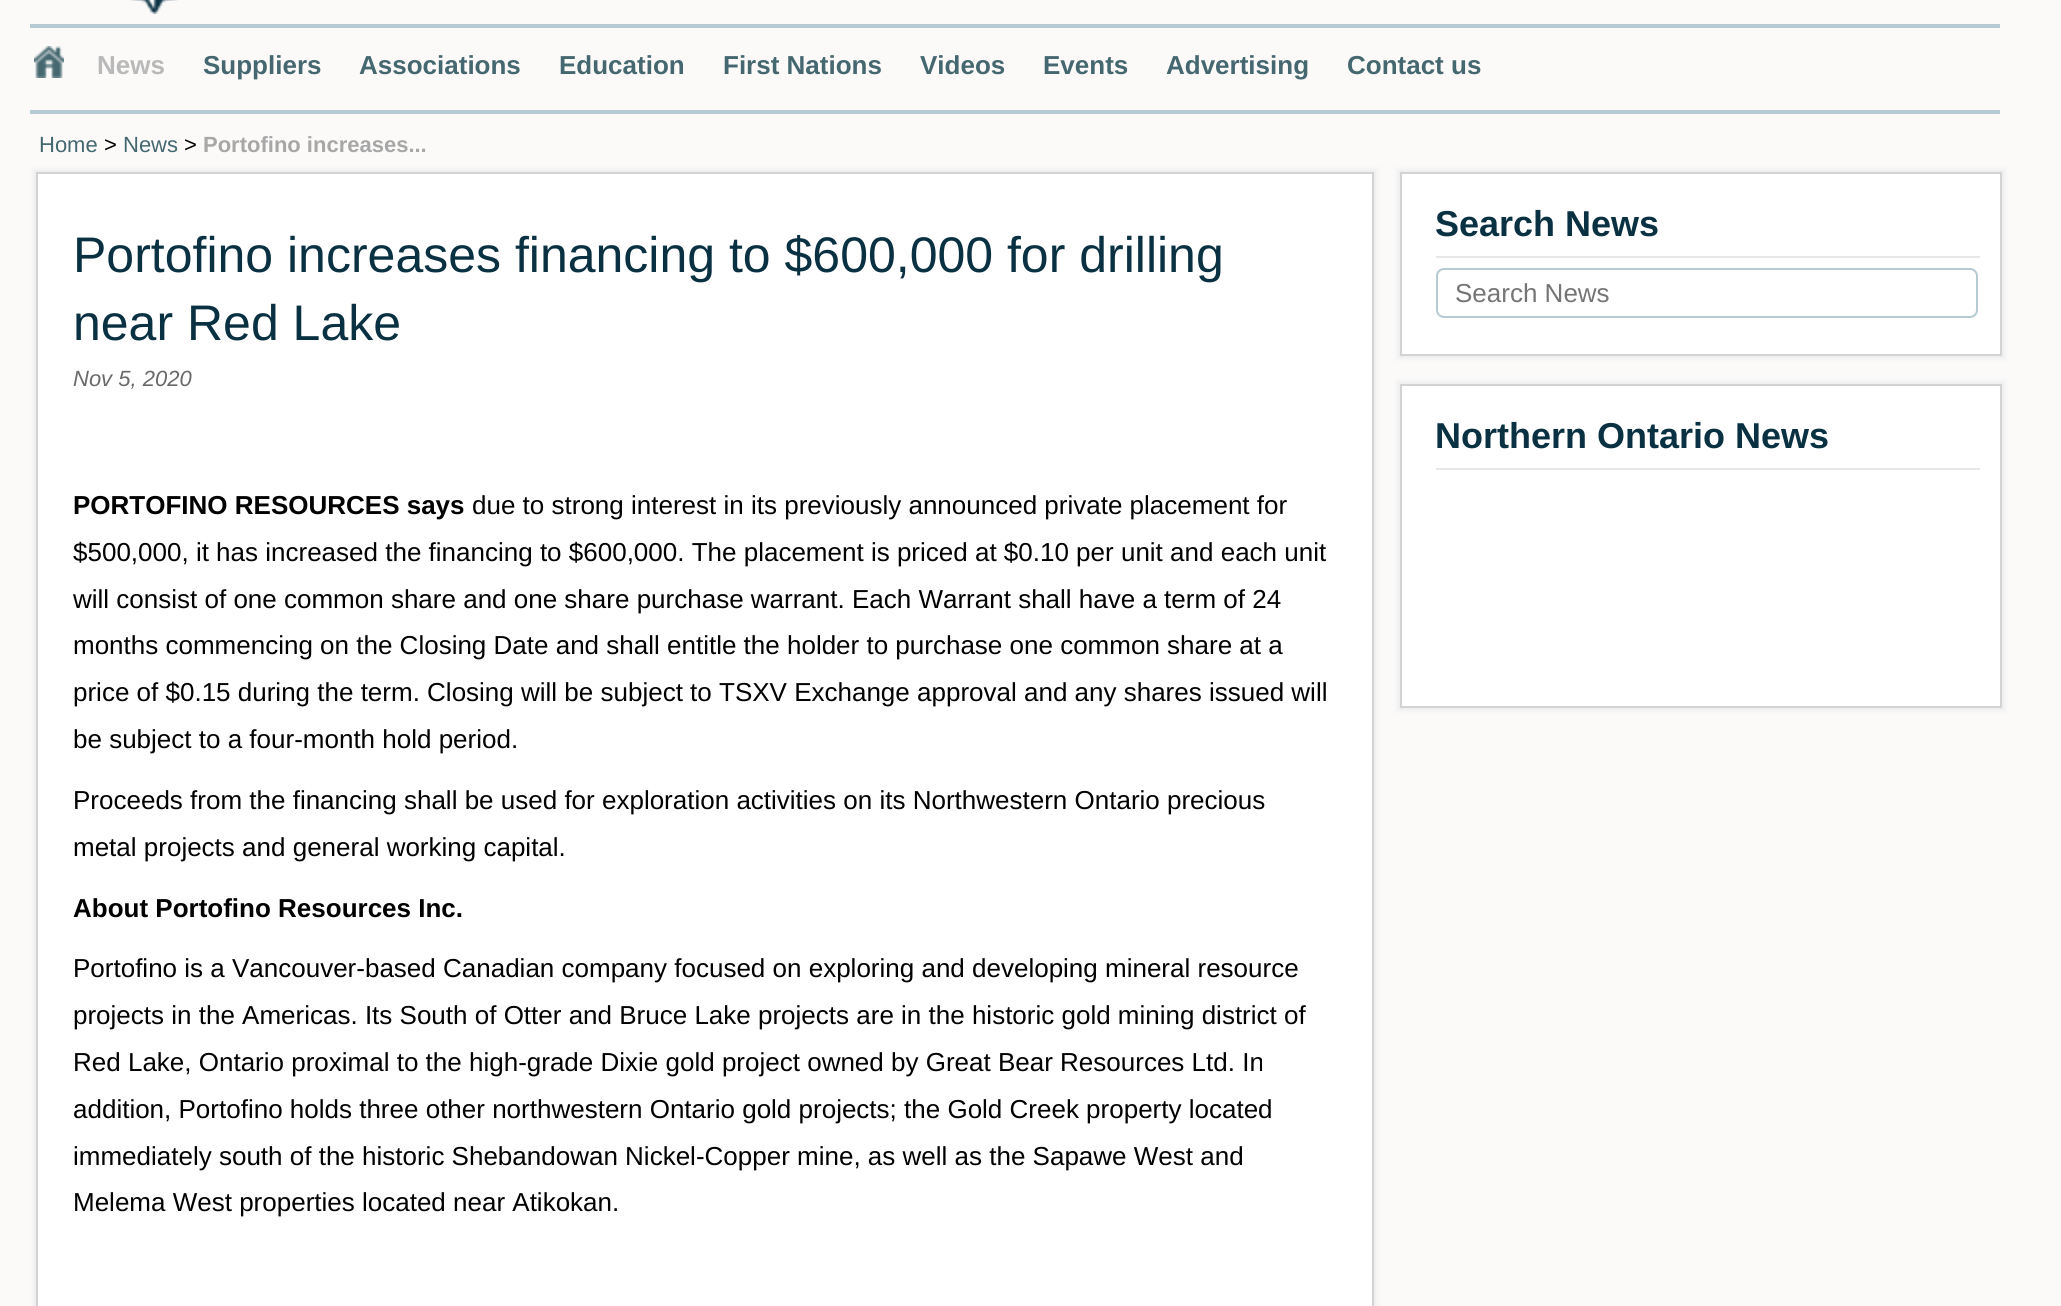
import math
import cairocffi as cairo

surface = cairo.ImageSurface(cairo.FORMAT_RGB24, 2061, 1306)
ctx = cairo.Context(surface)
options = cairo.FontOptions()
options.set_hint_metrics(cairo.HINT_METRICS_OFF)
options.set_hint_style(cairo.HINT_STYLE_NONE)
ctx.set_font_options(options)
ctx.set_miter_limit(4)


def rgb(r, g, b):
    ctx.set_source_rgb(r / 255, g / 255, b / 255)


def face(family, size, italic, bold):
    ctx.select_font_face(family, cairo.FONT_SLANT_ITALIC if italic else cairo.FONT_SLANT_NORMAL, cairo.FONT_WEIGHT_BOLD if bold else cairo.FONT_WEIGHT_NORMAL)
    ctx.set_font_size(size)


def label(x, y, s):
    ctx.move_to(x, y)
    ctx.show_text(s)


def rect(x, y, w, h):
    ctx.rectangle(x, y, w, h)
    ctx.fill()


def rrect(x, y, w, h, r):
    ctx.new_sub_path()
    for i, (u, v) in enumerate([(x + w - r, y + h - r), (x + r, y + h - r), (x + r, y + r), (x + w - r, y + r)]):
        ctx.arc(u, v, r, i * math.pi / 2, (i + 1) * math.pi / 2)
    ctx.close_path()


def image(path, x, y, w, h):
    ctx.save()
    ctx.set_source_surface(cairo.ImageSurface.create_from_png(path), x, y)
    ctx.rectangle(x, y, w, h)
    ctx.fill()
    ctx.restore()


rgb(251, 250, 249)
ctx.paint()
image('image0.png', 130, 0, 48, 14)
rgb(182, 202, 212)
rect(30, 24, 1970, 4)
rect(30, 110, 1970, 4)
image('image1.png', 34, 46, 30, 32)
face('Liberation Sans', 26, 0, 1)
rgb(185, 185, 185)
label(97, 74, 'News')
rgb(69, 103, 112)
label(203, 74, 'Suppliers')
label(359, 74, 'Associations')
label(559, 74, 'Education')
label(723, 74, 'First Nations')
label(920, 74, 'Videos')
label(1043, 74, 'Events')
label(1166, 74, 'Advertising')
label(1347, 74, 'Contact us')
face('Liberation Sans', 22, 0, 0)
label(39, 152, 'Home')
rgb(0, 0, 0)
label(104, 152, '>')
rgb(69, 103, 112)
label(123, 152, 'News')
rgb(0, 0, 0)
label(184, 152, '>')
face('Liberation Sans', 22, 0, 1)
rgb(167, 167, 167)
label(203, 152, 'Portofino increases...')
rgb(255, 255, 255)
rect(38, 174, 1334, 1132)
ctx.rectangle(31, 167, 1348, 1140)
rgb(248, 248, 248)
ctx.stroke()
ctx.rectangle(33, 169, 1344, 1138)
rgb(245, 245, 245)
ctx.stroke()
ctx.rectangle(35, 171, 1340, 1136)
rgb(240, 240, 240)
ctx.stroke()
ctx.rectangle(37, 173, 1336, 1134)
rgb(211, 211, 211)
ctx.stroke()
face('Liberation Sans', 50, 0, 0)
rgb(10, 49, 66)
label(73, 272, 'Portofino increases financing to $600,000 for drilling')
label(73, 340, 'near Red Lake')
face('Liberation Sans', 22, 1, 0)
rgb(105, 105, 105)
label(73, 386, 'Nov 5, 2020')
face('Liberation Sans', 26, 0, 1)
rgb(0, 0, 0)
label(73, 514, 'PORTOFINO RESOURCES says')
face('Liberation Sans', 26, 0, 0)
label(472, 514, 'due to strong interest in its previously announced private placement for')
label(73, 561, '$500,000, it has increased the financing to $600,000. The placement is priced at $0.10 per unit and each unit')
label(73, 608, 'will consist of one common share and one share purchase warrant. Each Warrant shall have a term of 24')
label(73, 654, 'months commencing on the Closing Date and shall entitle the holder to purchase one common share at a')
label(73, 701, 'price of $0.15 during the term. Closing will be subject to TSXV Exchange approval and any shares issued will')
label(73, 748, 'be subject to a four-month hold period.')
label(73, 809, 'Proceeds from the financing shall be used for exploration activities on its Northwestern Ontario precious')
label(73, 856, 'metal projects and general working capital.')
face('Liberation Sans', 26, 0, 1)
label(73, 917, 'About Portofino Resources Inc.')
face('Liberation Sans', 26, 0, 0)
label(73, 977, 'Portofino is a Vancouver-based Canadian company focused on exploring and developing mineral resource')
label(73, 1024, 'projects in the Americas. Its South of Otter and Bruce Lake projects are in the historic gold mining district of')
label(73, 1071, 'Red Lake, Ontario proximal to the high-grade Dixie gold project owned by Great Bear Resources Ltd. In')
label(73, 1118, 'addition, Portofino holds three other northwestern Ontario gold projects; the Gold Creek property located')
label(73, 1165, 'immediately south of the historic Shebandowan Nickel-Copper mine, as well as the Sapawe West and')
label(73, 1211, 'Melema West properties located near Atikokan.')
rgb(255, 255, 255)
rect(1402, 174, 598, 180)
ctx.rectangle(1395, 167, 612, 194)
rgb(248, 248, 248)
ctx.stroke()
ctx.rectangle(1397, 169, 608, 190)
rgb(245, 245, 245)
ctx.stroke()
ctx.rectangle(1399, 171, 604, 186)
rgb(240, 240, 240)
ctx.stroke()
ctx.rectangle(1401, 173, 600, 182)
rgb(211, 211, 211)
ctx.stroke()
rgb(231, 231, 231)
rect(1436, 256, 544, 2)
face('Liberation Sans', 36, 0, 1)
rgb(10, 49, 66)
label(1435, 236, 'Search News')
rrect(1437, 269, 540, 48, 7)
rgb(182, 202, 212)
ctx.stroke()
face('Liberation Sans', 26, 0, 0)
rgb(117, 117, 117)
label(1455, 302, 'Search News')
rgb(255, 255, 255)
rect(1402, 386, 598, 320)
ctx.rectangle(1395, 379, 612, 334)
rgb(248, 248, 248)
ctx.stroke()
ctx.rectangle(1397, 381, 608, 330)
rgb(245, 245, 245)
ctx.stroke()
ctx.rectangle(1399, 383, 604, 326)
rgb(240, 240, 240)
ctx.stroke()
ctx.rectangle(1401, 385, 600, 322)
rgb(211, 211, 211)
ctx.stroke()
rgb(231, 231, 231)
rect(1436, 468, 544, 2)
face('Liberation Sans', 36, 0, 1)
rgb(10, 49, 66)
label(1435, 448, 'Northern Ontario News')
surface.write_to_png('render.png')
